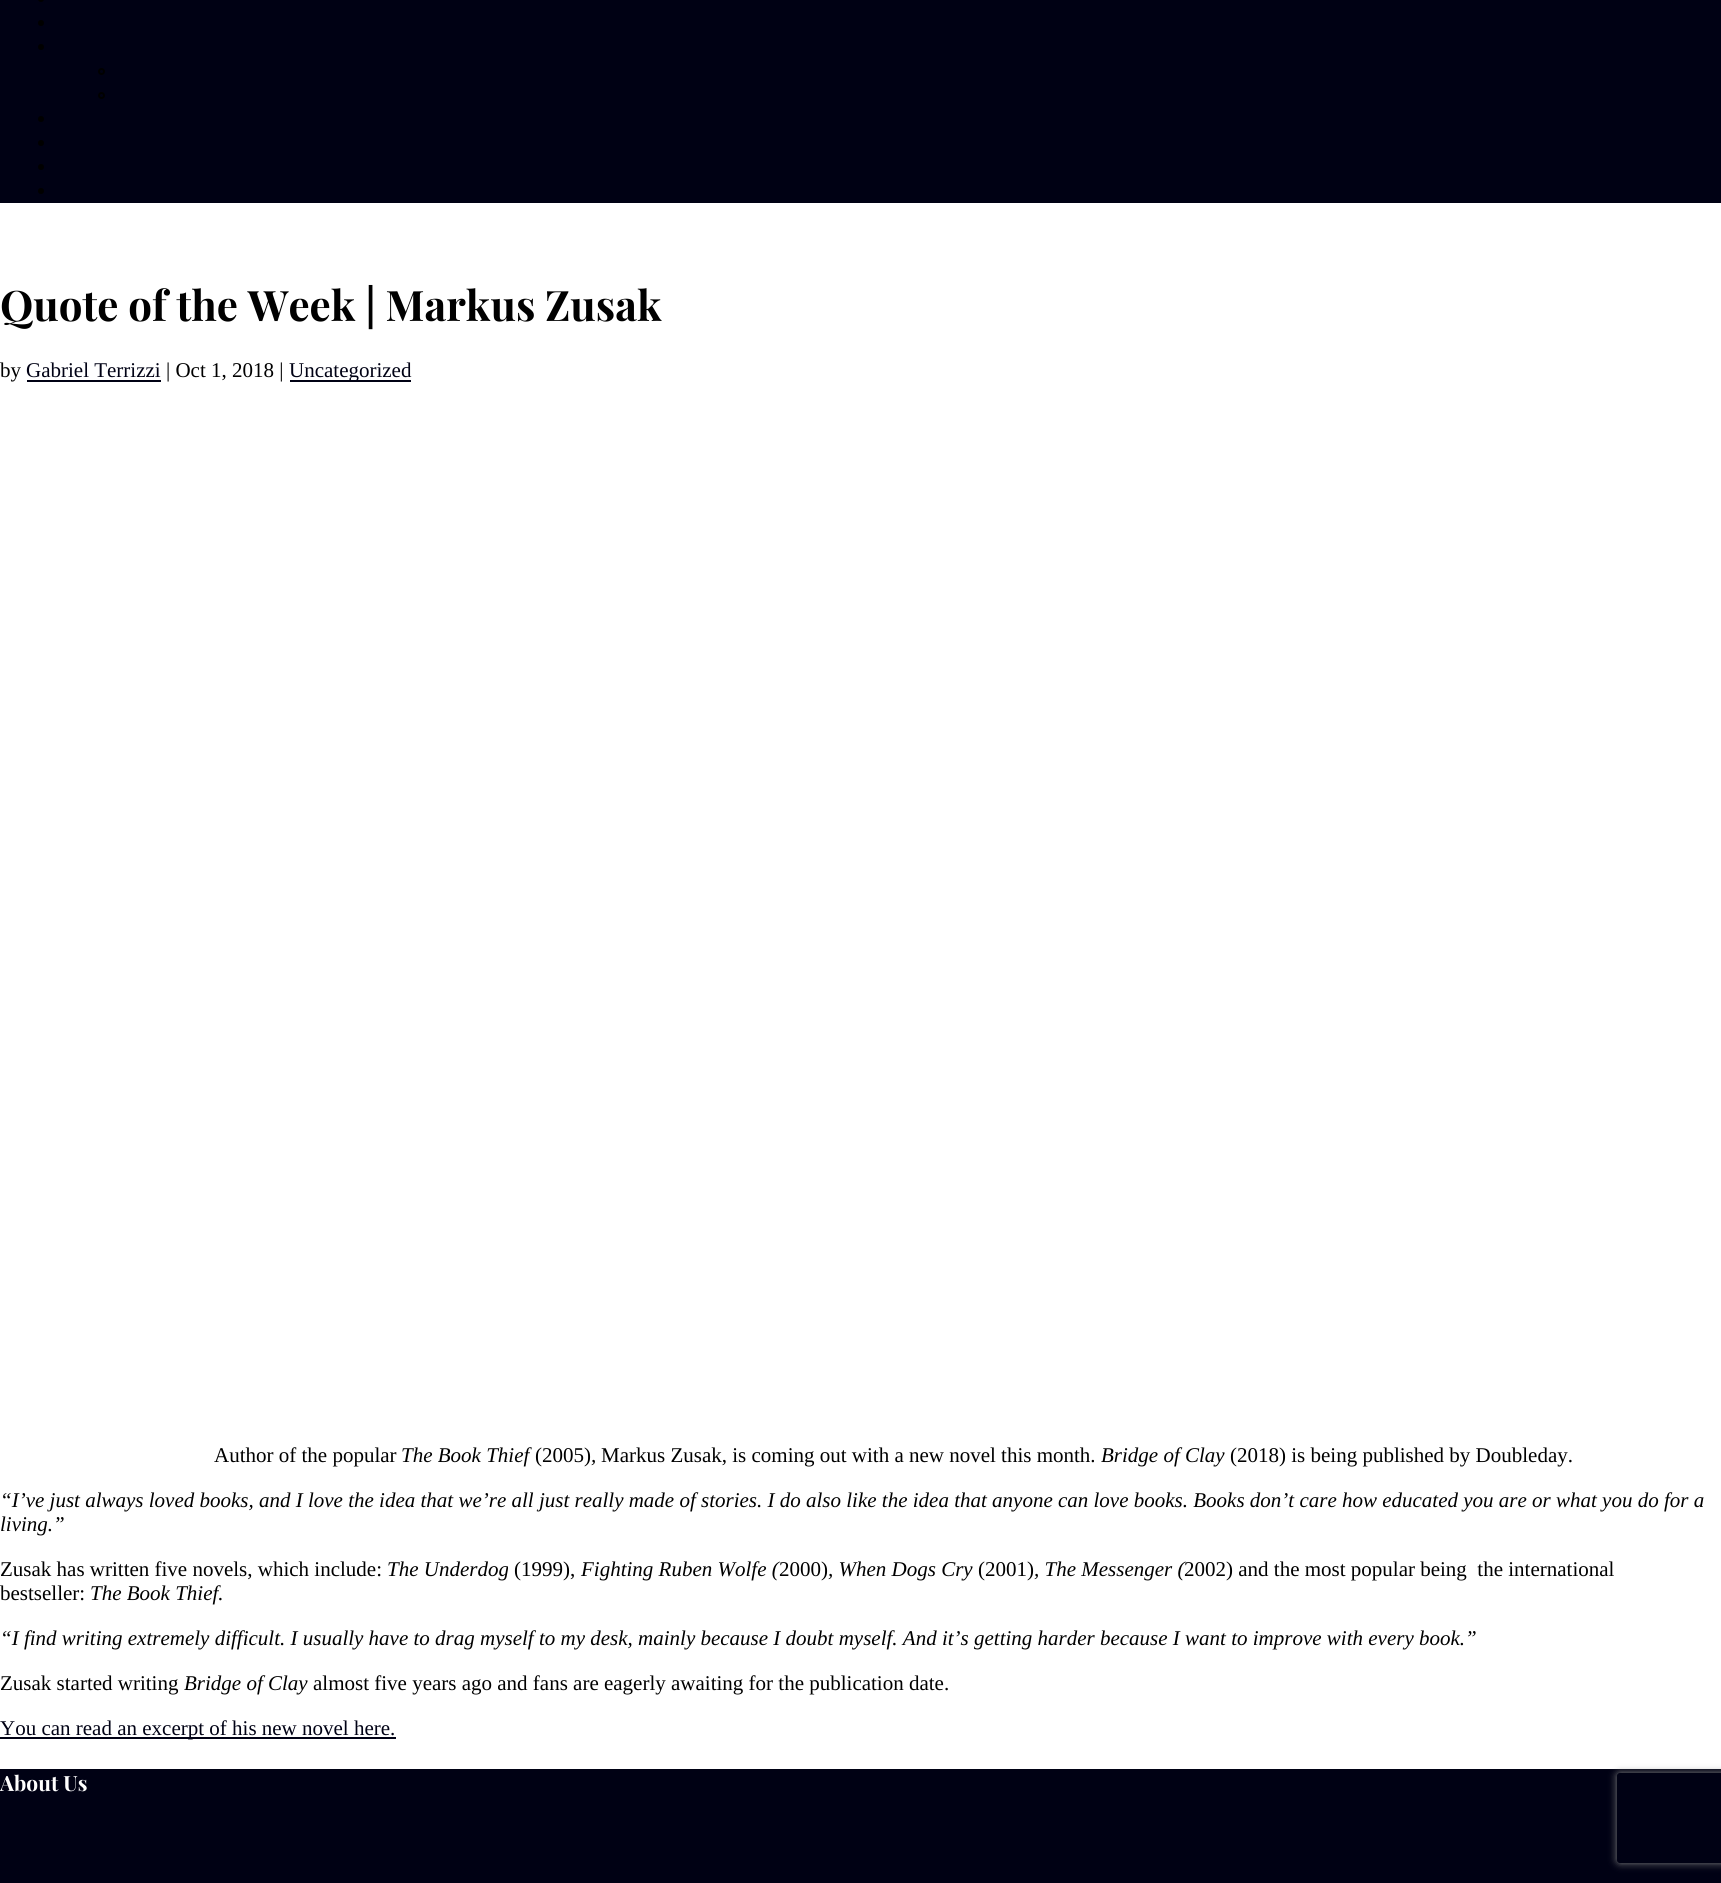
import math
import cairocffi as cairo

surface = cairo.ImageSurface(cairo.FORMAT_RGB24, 1721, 1883)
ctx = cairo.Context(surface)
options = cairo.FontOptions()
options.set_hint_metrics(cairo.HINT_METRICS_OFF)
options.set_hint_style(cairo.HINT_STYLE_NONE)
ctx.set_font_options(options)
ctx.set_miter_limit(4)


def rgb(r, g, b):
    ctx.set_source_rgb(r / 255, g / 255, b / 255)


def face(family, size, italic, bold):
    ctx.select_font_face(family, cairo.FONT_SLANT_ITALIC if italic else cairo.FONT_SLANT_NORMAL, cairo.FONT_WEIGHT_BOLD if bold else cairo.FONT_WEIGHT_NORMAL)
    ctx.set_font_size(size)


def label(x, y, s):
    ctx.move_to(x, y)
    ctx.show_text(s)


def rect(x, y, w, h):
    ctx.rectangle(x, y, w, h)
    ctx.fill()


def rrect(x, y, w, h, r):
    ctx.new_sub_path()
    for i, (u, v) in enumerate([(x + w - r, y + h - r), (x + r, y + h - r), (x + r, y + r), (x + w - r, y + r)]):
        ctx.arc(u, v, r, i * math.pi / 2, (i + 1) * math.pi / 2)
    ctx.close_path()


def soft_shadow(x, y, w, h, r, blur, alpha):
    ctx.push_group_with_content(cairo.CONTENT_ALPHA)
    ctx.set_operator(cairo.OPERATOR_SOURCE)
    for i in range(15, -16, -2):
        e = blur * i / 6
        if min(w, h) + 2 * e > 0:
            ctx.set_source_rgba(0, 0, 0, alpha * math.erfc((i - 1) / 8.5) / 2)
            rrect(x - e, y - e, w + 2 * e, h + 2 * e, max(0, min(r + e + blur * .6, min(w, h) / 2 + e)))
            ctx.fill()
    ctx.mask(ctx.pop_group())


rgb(255, 255, 255)
ctx.paint()
rgb(0, 1, 20)
rect(0, 0, 1721, 203)
rgb(0, 0, 0)
rrect(38, -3, 6, 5, 3)
ctx.fill()
ctx.arc(41, 23, 3, 0, 2 * math.pi)
ctx.fill()
ctx.arc(41, 47, 3, 0, 2 * math.pi)
ctx.fill()
ctx.arc(101.5, 71.5, 2.5, 0, 2 * math.pi)
ctx.stroke()
ctx.arc(101.5, 95.5, 2.5, 0, 2 * math.pi)
ctx.stroke()
ctx.arc(41, 119, 3, 0, 2 * math.pi)
ctx.fill()
ctx.arc(41, 143, 3, 0, 2 * math.pi)
ctx.fill()
ctx.arc(41, 167, 3, 0, 2 * math.pi)
ctx.fill()
ctx.arc(41, 191, 3, 0, 2 * math.pi)
ctx.fill()
face('Playfair Display', 42, 0, 1)
label(0, 321, 'Quote of the Week | Markus Zusak')
face('Liberation Serif', 21, 0, 0)
label(0, 377, 'by')
rgb(0, 1, 20)
label(26, 377, 'Gabriel Terrizzi')
rect(27, 380, 134, 2)
rgb(0, 0, 0)
label(166, 377, '| Oct 1, 2018 |')
rgb(0, 1, 20)
rect(290, 380, 121, 2)
label(289, 377, 'Uncategorized')
rgb(0, 0, 0)
label(214, 1462, 'Author of the popular')
face('Liberation Serif', 21, 1, 0)
label(401, 1462, 'The Book Thief')
face('Liberation Serif', 21, 0, 0)
label(535, 1462, '(2005)')
face('Liberation Serif', 21, 1, 0)
label(591, 1462, ',')
face('Liberation Serif', 21, 0, 0)
label(601, 1462, 'Markus Zusak, is coming out with a new novel this month.')
face('Liberation Serif', 21, 1, 0)
label(1101, 1462, 'Bridge of Clay')
face('Liberation Serif', 21, 0, 0)
label(1230, 1462, '(2018) is being published by Doubleday.')
face('Liberation Serif', 21, 1, 0)
label(0, 1507, '“I’ve just always loved books, and I love the idea that we’re all just really made of stories. I do also like the idea that anyone can love books. Books don’t care how educated you are or what you do for a')
label(0, 1531, 'living.”')
face('Liberation Serif', 21, 0, 0)
label(0, 1576, 'Zusak has written five novels, which include:')
face('Liberation Serif', 21, 1, 0)
label(387, 1576, 'The Underdog')
face('Liberation Serif', 21, 0, 0)
label(514, 1576, '(1999),')
face('Liberation Serif', 21, 1, 0)
label(581, 1576, 'Fighting Ruben Wolfe (')
face('Liberation Serif', 21, 0, 0)
label(779, 1576, '2000)')
face('Liberation Serif', 21, 1, 0)
label(828, 1576, ', When Dogs Cry')
face('Liberation Serif', 21, 0, 0)
label(978, 1576, '(2001)')
face('Liberation Serif', 21, 1, 0)
label(1034, 1576, ', The Messenger (')
face('Liberation Serif', 21, 0, 0)
label(1184, 1576, '2002) and the most popular being  the international')
label(0, 1600, 'bestseller:')
face('Liberation Serif', 21, 1, 0)
label(90, 1600, 'The Book Thief.')
label(0, 1645, '“I find writing extremely difficult. I usually have to drag myself to my desk, mainly because I doubt myself. And it’s getting harder because I want to improve with every book.”')
face('Liberation Serif', 21, 0, 0)
label(0, 1690, 'Zusak started writing')
face('Liberation Serif', 21, 1, 0)
label(184, 1690, 'Bridge of Clay')
face('Liberation Serif', 21, 0, 0)
label(313, 1690, 'almost five years ago and fans are eagerly awaiting for the publication date.')
rgb(0, 1, 20)
rect(0, 1737, 396, 2)
label(0, 1735, 'You can read an excerpt of his new novel here.')
rect(0, 1769, 1721, 114)
face('Playfair Display', 21, 0, 1)
rgb(255, 255, 255)
label(0, 1791, 'About Us')
ctx.save()
ctx.set_fill_rule(cairo.FILL_RULE_EVEN_ODD)
ctx.new_path()
ctx.move_to(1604, 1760)
ctx.line_to(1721, 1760)
ctx.line_to(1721, 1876)
ctx.line_to(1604, 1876)
ctx.close_path()
ctx.move_to(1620, 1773)
ctx.line_to(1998, 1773)
ctx.curve_to(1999.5, 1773, 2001, 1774.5, 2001, 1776)
ctx.line_to(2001, 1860)
ctx.curve_to(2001, 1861.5, 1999.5, 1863, 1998, 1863)
ctx.line_to(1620, 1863)
ctx.curve_to(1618.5, 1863, 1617, 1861.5, 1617, 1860)
ctx.line_to(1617, 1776)
ctx.curve_to(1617, 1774.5, 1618.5, 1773, 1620, 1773)
ctx.close_path()
ctx.clip()
rgb(128, 128, 128)
soft_shadow(1617, 1773, 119, 90, 3, 4, 1)
ctx.restore()
surface.write_to_png('render.png')
